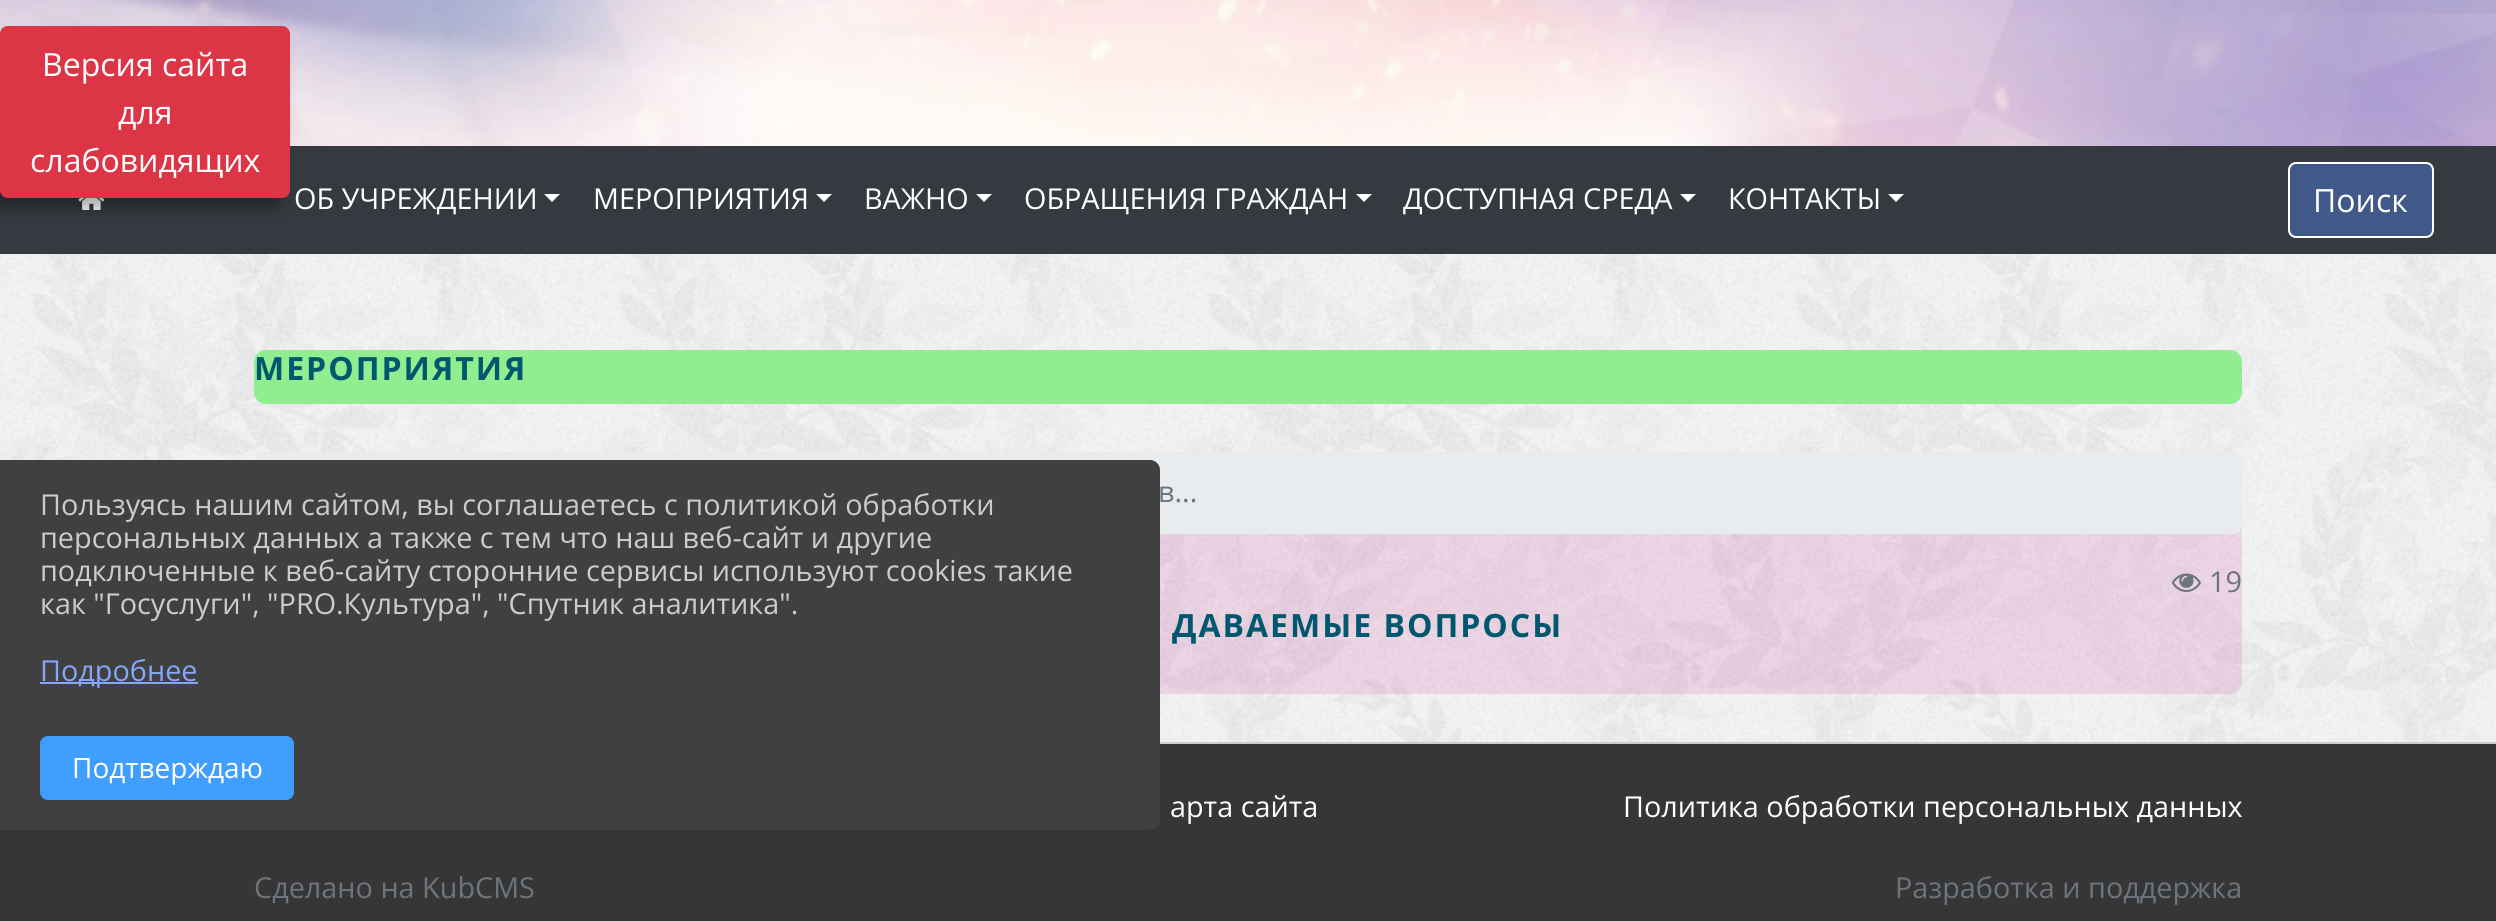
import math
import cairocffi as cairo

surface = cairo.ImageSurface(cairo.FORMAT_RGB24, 2496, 921)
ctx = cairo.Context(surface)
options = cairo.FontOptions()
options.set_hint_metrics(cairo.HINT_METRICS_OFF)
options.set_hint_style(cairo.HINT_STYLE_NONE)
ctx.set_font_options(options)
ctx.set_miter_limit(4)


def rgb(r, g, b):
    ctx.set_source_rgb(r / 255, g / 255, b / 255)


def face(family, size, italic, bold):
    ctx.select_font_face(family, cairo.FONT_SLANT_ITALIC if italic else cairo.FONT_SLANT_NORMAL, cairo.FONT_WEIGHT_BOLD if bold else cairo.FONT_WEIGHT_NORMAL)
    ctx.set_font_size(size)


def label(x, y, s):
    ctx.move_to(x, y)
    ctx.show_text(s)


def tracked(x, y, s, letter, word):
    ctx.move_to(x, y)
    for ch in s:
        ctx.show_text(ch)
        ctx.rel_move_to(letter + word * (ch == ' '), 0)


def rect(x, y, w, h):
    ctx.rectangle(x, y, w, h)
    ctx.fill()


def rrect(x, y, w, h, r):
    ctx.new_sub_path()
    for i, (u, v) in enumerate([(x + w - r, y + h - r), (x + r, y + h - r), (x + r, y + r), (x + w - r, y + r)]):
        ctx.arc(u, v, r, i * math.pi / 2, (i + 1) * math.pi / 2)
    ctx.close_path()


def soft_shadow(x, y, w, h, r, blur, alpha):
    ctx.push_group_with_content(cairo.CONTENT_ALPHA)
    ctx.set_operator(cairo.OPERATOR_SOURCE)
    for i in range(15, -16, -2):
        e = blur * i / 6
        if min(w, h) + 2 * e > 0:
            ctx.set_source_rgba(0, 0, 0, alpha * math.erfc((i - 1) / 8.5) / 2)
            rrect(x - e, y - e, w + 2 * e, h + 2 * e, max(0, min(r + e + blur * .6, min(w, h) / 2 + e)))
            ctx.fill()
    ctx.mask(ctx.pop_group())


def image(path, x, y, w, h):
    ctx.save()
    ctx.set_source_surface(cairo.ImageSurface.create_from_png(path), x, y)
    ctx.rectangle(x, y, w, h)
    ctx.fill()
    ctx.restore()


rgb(255, 255, 255)
ctx.paint()
image('image0.png', 0, 254, 2496, 488)
image('image1.png', 0, 0, 2496, 146)
rgb(52, 58, 64)
rect(0, 146, 2496, 108)
image('image2.png', 78, 198, 27, 12)
rgb(0, 0, 0)
soft_shadow(-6, 40, 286, 168, 6, 8, 0.35)
rgb(220, 53, 69)
rrect(1, 27, 288, 170, 7)
ctx.fill_preserve()
ctx.stroke()
face('Open Sans', 32, 0, 0)
rgb(255, 255, 255)
label(42, 76, 'Версия сайта')
label(118, 124, 'для')
label(30, 172, 'слабовидящих')
face('Open Sans', 28.8, 0, 0)
label(294, 209, 'ОБ УЧРЕЖДЕНИИ')
ctx.new_path()
ctx.move_to(544, 194)
ctx.line_to(560, 194)
ctx.line_to(552, 202)
ctx.close_path()
ctx.fill()
label(593, 209, 'МЕРОПРИЯТИЯ')
ctx.new_path()
ctx.move_to(816, 194)
ctx.line_to(832, 194)
ctx.line_to(824, 202)
ctx.close_path()
ctx.fill()
label(864, 209, 'ВАЖНО')
ctx.new_path()
ctx.move_to(976, 194)
ctx.line_to(992, 194)
ctx.line_to(984, 202)
ctx.close_path()
ctx.fill()
label(1024, 209, 'ОБРАЩЕНИЯ ГРАЖДАН')
ctx.new_path()
ctx.move_to(1356, 194)
ctx.line_to(1372, 194)
ctx.line_to(1364, 202)
ctx.close_path()
ctx.fill()
label(1403, 209, 'ДОСТУПНАЯ СРЕДА')
ctx.new_path()
ctx.move_to(1680, 194)
ctx.line_to(1696, 194)
ctx.line_to(1688, 202)
ctx.close_path()
ctx.fill()
label(1728, 209, 'КОНТАКТЫ')
ctx.new_path()
ctx.move_to(1888, 194)
ctx.line_to(1904, 194)
ctx.line_to(1896, 202)
ctx.close_path()
ctx.fill()
rgb(64, 89, 136)
rrect(2289, 163, 144, 74, 7)
ctx.fill_preserve()
rgb(255, 255, 255)
ctx.stroke()
face('Open Sans', 32, 0, 0)
label(2313, 212, 'Поиск')
rgb(144, 238, 144)
rrect(254, 350, 1988, 54, 12)
ctx.fill()
face('Open Sans', 32, 0, 1)
rgb(0, 88, 111)
tracked(254, 380, 'МЕРОПРИЯТИЯ', 2, 0)
ctx.set_source_rgba(0.78, 0.082, 0.522, 0.13)
rrect(254, 452, 1988, 242, 12)
ctx.fill()
rgb(233, 236, 239)
rrect(254, 452, 1988, 82, 8)
ctx.fill()
face('Open Sans', 28.8, 0, 0)
rgb(108, 117, 125)
label(1158, 502, 'в...')
image('image3.png', 2172, 573, 29, 19)
label(2209, 592, '19')
face('Open Sans', 32, 0, 1)
rgb(0, 88, 111)
tracked(1172, 637, 'ДАВАЕМЫЕ ВОПРОСЫ', 2, 0)
rgb(55, 54, 54)
rect(0, 744, 2496, 177)
rgb(204, 204, 204)
rect(1160, 742, 1336, 2)
face('Open Sans', 28.8, 0, 0)
rgb(255, 255, 255)
label(1170, 817, 'арта сайта')
label(1623, 817, 'Политика обработки персональных данных')
rgb(108, 117, 125)
label(254, 898, 'Сделано на KubCMS')
label(1895, 898, 'Разработка и поддержка')
rgb(64, 64, 64)
ctx.new_path()
ctx.move_to(0, 460)
ctx.line_to(1150, 460)
ctx.curve_to(1155.5, 460, 1160, 464.5, 1160, 470)
ctx.line_to(1160, 820)
ctx.curve_to(1160, 825.5, 1155.5, 830, 1150, 830)
ctx.line_to(0, 830)
ctx.close_path()
ctx.fill()
rgb(204, 204, 204)
label(40, 515, 'Пользуясь нашим сайтом, вы соглашаетесь с политикой обработки')
label(40, 548, 'персональных данных а также с тем что наш веб-сайт и другие')
label(40, 581, 'подключенные к веб-сайту сторонние сервисы используют cookies такие')
label(40, 614, 'как "Госуслуги", "PRO.Культура", "Спутник аналитика".')
rgb(133, 166, 249)
rect(40, 682, 158, 2)
label(40, 681, 'Подробнее')
rgb(64, 158, 255)
rrect(41, 737, 252, 62, 7)
ctx.fill_preserve()
ctx.stroke()
face('Open Sans', 28, 0, 0)
rgb(255, 255, 255)
label(72, 778, 'Подтверждаю')
surface.write_to_png('render.png')
